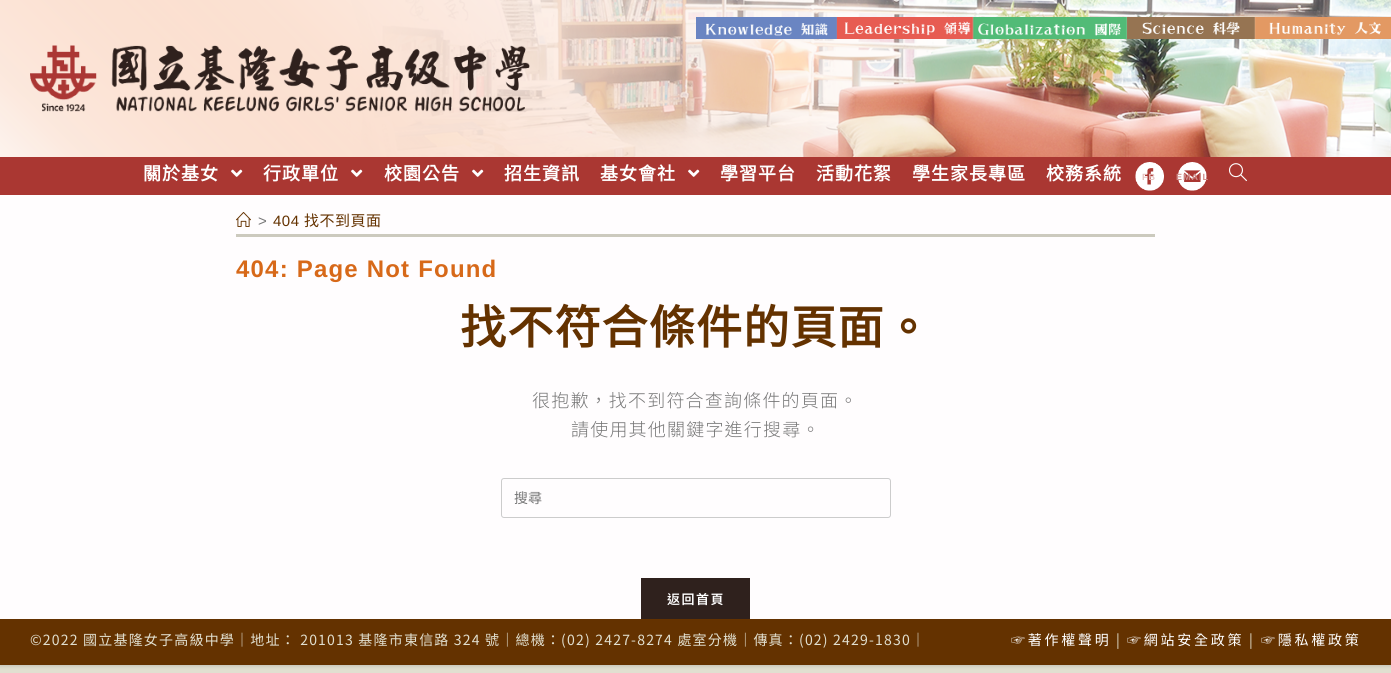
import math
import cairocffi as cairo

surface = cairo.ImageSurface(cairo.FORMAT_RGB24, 1391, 673)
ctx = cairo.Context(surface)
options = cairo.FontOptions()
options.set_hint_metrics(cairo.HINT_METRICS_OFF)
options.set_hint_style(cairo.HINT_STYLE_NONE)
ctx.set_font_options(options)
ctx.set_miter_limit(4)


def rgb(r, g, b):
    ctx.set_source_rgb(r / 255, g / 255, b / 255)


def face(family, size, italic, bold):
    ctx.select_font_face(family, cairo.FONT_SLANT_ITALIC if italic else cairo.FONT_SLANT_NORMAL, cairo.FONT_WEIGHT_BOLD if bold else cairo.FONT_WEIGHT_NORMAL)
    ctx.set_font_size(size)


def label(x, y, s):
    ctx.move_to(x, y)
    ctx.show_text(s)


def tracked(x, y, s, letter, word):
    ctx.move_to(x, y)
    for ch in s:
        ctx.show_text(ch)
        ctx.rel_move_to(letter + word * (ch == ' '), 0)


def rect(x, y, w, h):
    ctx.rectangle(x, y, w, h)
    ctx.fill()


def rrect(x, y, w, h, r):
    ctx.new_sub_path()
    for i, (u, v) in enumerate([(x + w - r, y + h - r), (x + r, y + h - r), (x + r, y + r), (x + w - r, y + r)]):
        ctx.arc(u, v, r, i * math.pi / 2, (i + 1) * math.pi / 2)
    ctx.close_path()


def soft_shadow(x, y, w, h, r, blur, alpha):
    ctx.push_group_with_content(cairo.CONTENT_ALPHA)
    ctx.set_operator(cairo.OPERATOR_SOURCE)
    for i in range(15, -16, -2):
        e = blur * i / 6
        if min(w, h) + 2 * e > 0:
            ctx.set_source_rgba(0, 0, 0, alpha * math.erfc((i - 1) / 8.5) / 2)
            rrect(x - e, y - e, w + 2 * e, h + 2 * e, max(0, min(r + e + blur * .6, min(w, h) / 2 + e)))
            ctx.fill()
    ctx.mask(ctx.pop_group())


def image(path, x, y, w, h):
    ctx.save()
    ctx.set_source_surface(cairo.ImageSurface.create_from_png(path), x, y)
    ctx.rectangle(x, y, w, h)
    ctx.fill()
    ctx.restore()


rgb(225, 223, 208)
ctx.paint()
rgb(0, 0, 0)
soft_shadow(0, 1, 1391, 665, 0, 2, 0.15)
rgb(255, 253, 254)
rect(0, 195, 1391, 424)
image('image0.png', 0, 0, 1391, 157)
image('image1.png', 696, 17, 695, 22)
image('image2.png', 30, 45, 500, 67)
rgb(170, 55, 50)
rect(0, 157, 1391, 38)
face('Noto Sans CJK TC', 18, 0, 1)
rgb(255, 255, 255)
tracked(143, 180, '關於基女', 1, 0)
image('image3.png', 231, 169, 12, 8)
tracked(263, 180, '行政單位', 1, 0)
image('image3.png', 351, 169, 12, 8)
tracked(384, 180, '校園公告', 1, 0)
image('image3.png', 472, 169, 12, 8)
tracked(504, 180, '招生資訊', 1, 0)
tracked(600, 180, '基女會社', 1, 0)
image('image3.png', 688, 169, 12, 8)
tracked(720, 180, '學習平台', 1, 0)
tracked(816, 180, '活動花絮', 1, 0)
tracked(912, 180, '學生家長專區', 1, 0)
tracked(1046, 180, '校務系統', 1, 0)
image('image4.png', 1135, 162, 29, 29)
face('Liberation Sans', 9, 0, 1)
rgb(229, 194, 192)
tracked(1142, 180, 'FB', 1, 0)
image('image5.png', 1178, 162, 29, 29)
rgb(207, 142, 139)
tracked(1176, 180, 'EMAIL', 1, 0)
image('image6.png', 1229, 163, 18, 19)
rgb(204, 202, 190)
rect(236, 234, 919, 3)
image('image7.png', 236, 212, 15, 15)
face('Liberation Sans', 15, 0, 0)
rgb(119, 119, 119)
tracked(258, 226, '>', 0.5, 0)
rgb(100, 50, 0)
tracked(273, 226, '404', 0.5, 0)
face('Noto Sans CJK TC', 15, 0, 0)
tracked(304, 226, '找不到頁面', 0.5, 0)
face('Liberation Sans', 24, 0, 1)
rgb(215, 105, 25)
tracked(236, 277, '404: Page Not Found', 1.2, 0)
face('Noto Sans CJK TC', 46, 0, 1)
rgb(100, 50, 0)
tracked(460, 344, '找不符合條件的頁面。', 1.2, 0)
face('Noto Sans TC Light', 18, 0, 0)
rgb(119, 119, 119)
tracked(532, 407, '很抱歉，找不到符合查詢條件的頁面。', 1.2, 0)
tracked(571, 436, '請使用其他關鍵字進行搜尋。', 1.2, 0)
rrect(501.5, 478.5, 389, 39, 2.5)
rgb(204, 204, 204)
ctx.set_line_width(1)
ctx.stroke()
face('Noto Sans TC', 14, 0, 0)
rgb(119, 119, 119)
label(514, 503, '搜尋')
rgb(47, 33, 29)
rect(641, 578, 109, 41)
face('Noto Sans TC SemiBold', 13, 0, 0)
rgb(255, 255, 255)
tracked(667, 604, '返回首頁', 1.5, 0)
rgb(100, 50, 0)
rect(0, 619, 1391, 46)
face('Noto Sans TC', 14, 0, 0)
rgb(225, 223, 207)
tracked(30, 645, '©2022 國立基隆女子高級中學｜地址： 201013 基隆市東信路 324 號｜總機：(02) 2427-8274 處室分機｜傳真：(02) 2429-1830｜', 1.2, 0)
rgb(255, 255, 255)
tracked(1011, 645, '☞著作權聲明', 2.75, 0)
rgb(225, 223, 207)
tracked(1116, 645, '|', 2.75, 0)
rgb(255, 255, 255)
tracked(1127, 645, '☞網站安全政策', 2.75, 0)
rgb(225, 223, 207)
tracked(1249, 645, '|', 2.75, 0)
rgb(255, 255, 255)
tracked(1261, 645, '☞隱私權政策', 2.75, 0)
surface.write_to_png('render.png')
